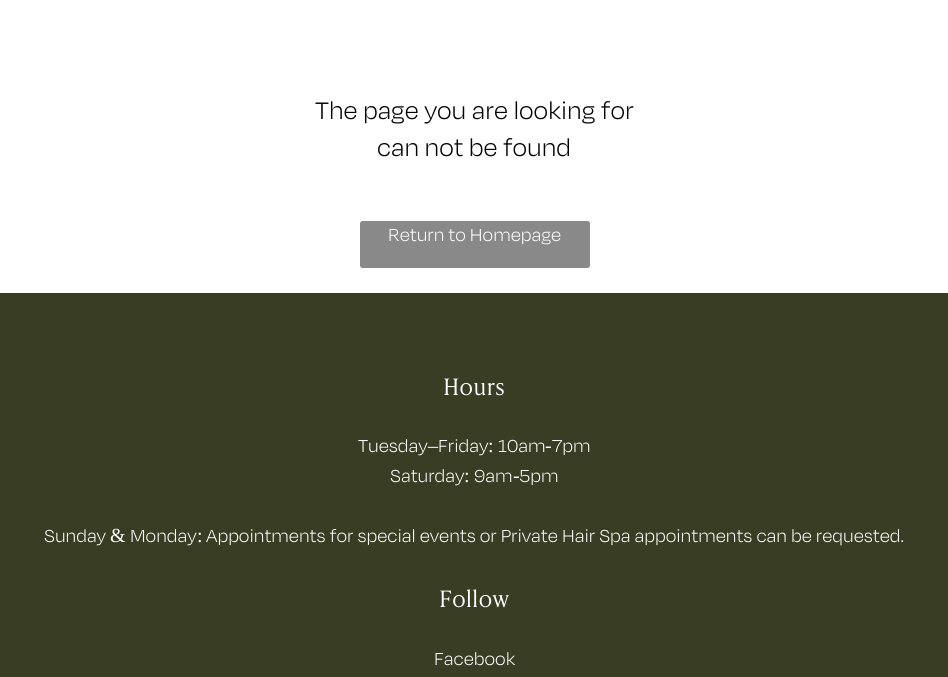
import math
import cairocffi as cairo

surface = cairo.ImageSurface(cairo.FORMAT_RGB24, 948, 677)
ctx = cairo.Context(surface)
options = cairo.FontOptions()
options.set_hint_metrics(cairo.HINT_METRICS_OFF)
options.set_hint_style(cairo.HINT_STYLE_NONE)
ctx.set_font_options(options)
ctx.set_miter_limit(4)


def rgb(r, g, b):
    ctx.set_source_rgb(r / 255, g / 255, b / 255)


def face(family, size, italic, bold):
    ctx.select_font_face(family, cairo.FONT_SLANT_ITALIC if italic else cairo.FONT_SLANT_NORMAL, cairo.FONT_WEIGHT_BOLD if bold else cairo.FONT_WEIGHT_NORMAL)
    ctx.set_font_size(size)


def label(x, y, s):
    ctx.move_to(x, y)
    ctx.show_text(s)


def rect(x, y, w, h):
    ctx.rectangle(x, y, w, h)
    ctx.fill()


def rrect(x, y, w, h, r):
    ctx.new_sub_path()
    for i, (u, v) in enumerate([(x + w - r, y + h - r), (x + r, y + h - r), (x + r, y + r), (x + w - r, y + r)]):
        ctx.arc(u, v, r, i * math.pi / 2, (i + 1) * math.pi / 2)
    ctx.close_path()


rgb(255, 255, 255)
ctx.paint()
face('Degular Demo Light', 27.5, 0, 0)
rgb(0, 0, 0)
label(315, 119, 'The page you are looking for')
label(377, 156, 'can not be found')
rgb(137, 137, 137)
rrect(360, 221, 230, 47, 2.5)
ctx.fill()
face('Degular Demo Light', 20, 0, 0)
rgb(255, 255, 255)
label(388, 241, 'Return to Homepage')
rgb(57, 61, 36)
rect(0, 293, 948, 384)
face('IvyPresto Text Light', 22.5, 0, 0)
rgb(255, 255, 255)
label(443, 395, 'Hours')
face('Degular Demo Light', 20, 0, 0)
label(358, 452, 'Tuesday')
face('Liberation Serif', 20, 0, 0)
label(428, 452, '–')
face('Degular Demo Light', 20, 0, 0)
label(438, 452, 'Friday')
face('Liberation Serif', 20, 0, 0)
label(488, 452, ':')
face('Degular Demo Light', 20, 0, 0)
label(498, 452, '10am')
face('Liberation Serif', 20, 0, 0)
label(545, 452, '-')
face('Degular Demo Light', 20, 0, 0)
label(552, 452, '7pm')
label(390, 482, 'Saturday')
face('Liberation Serif', 20, 0, 0)
label(464, 482, ':')
face('Degular Demo Light', 20, 0, 0)
label(474, 482, '9am')
face('Liberation Serif', 20, 0, 0)
label(513, 482, '-')
face('Degular Demo Light', 20, 0, 0)
label(519, 482, '5pm')
label(44, 542, 'Sunday')
face('Liberation Serif', 20, 0, 0)
label(110, 542, '&')
face('Degular Demo Light', 20, 0, 0)
label(130, 542, 'Monday')
face('Liberation Serif', 20, 0, 0)
label(197, 542, ':')
face('Degular Demo Light', 20, 0, 0)
label(206, 542, 'Appointments for special events or Private Hair Spa appointments can be requested.')
face('IvyPresto Text Light', 22.5, 0, 0)
label(439, 607, 'Follow')
face('Degular Demo Light', 20, 0, 0)
label(434, 665, 'Facebook')
surface.write_to_png('render.png')
